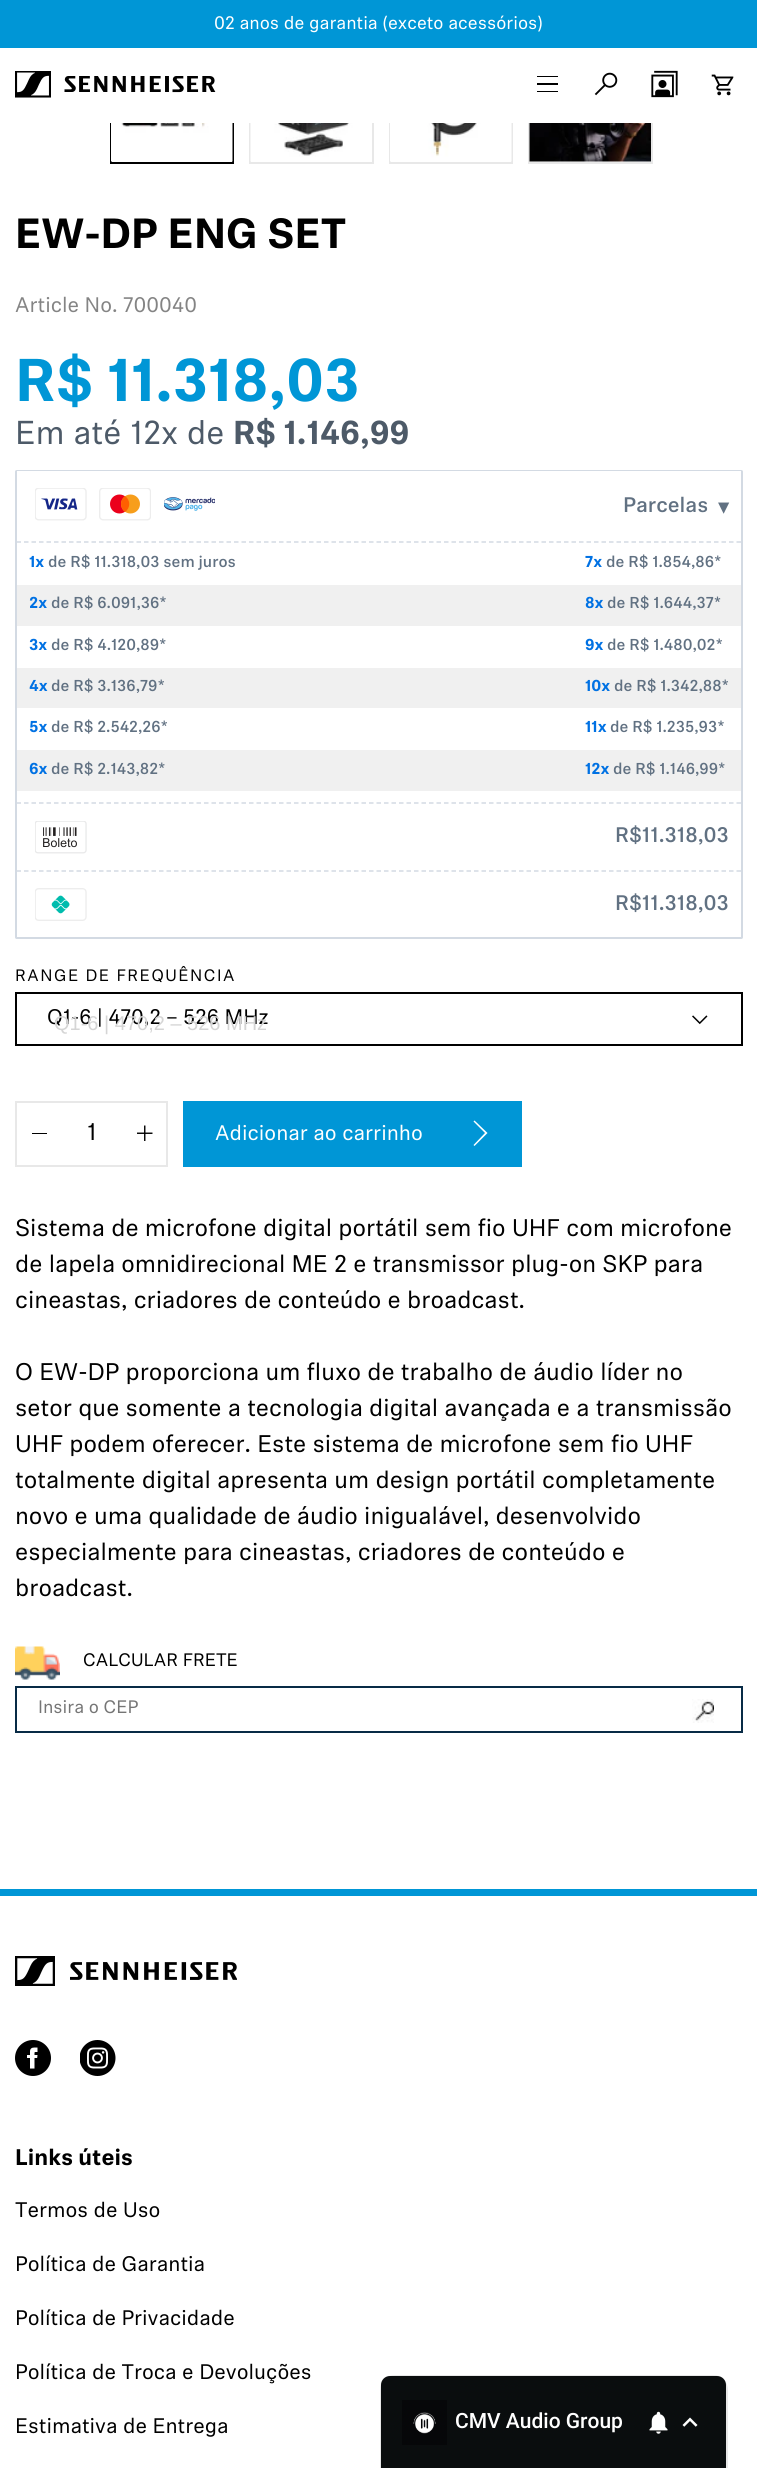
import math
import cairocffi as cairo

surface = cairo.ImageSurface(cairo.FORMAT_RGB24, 757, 2468)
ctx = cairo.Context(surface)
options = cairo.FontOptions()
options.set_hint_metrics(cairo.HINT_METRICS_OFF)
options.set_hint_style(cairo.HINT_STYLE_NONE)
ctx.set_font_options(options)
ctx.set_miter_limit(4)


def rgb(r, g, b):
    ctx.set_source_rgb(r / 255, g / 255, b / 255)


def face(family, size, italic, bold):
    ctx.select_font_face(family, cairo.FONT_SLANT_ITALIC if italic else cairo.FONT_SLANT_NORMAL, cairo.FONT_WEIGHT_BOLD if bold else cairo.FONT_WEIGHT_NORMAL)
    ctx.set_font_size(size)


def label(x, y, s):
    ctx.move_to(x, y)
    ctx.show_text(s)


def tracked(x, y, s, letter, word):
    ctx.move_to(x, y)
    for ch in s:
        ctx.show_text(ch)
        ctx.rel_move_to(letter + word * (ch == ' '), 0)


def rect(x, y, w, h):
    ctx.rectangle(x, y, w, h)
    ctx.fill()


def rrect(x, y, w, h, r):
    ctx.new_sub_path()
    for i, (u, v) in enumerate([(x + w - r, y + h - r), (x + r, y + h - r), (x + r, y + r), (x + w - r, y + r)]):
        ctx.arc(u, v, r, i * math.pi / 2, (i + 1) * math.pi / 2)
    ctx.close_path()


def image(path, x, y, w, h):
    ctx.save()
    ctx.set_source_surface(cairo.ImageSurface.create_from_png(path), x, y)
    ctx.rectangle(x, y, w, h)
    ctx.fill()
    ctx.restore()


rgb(255, 255, 255)
ctx.paint()
ctx.rectangle(111, 40, 122, 123)
rgb(0, 0, 0)
ctx.stroke()
ctx.rectangle(250, 40, 123, 123)
rgb(232, 232, 232)
ctx.stroke()
ctx.rectangle(390, 40, 122, 123)
ctx.stroke()
ctx.rectangle(529, 40, 123, 123)
ctx.stroke()
rgb(255, 255, 255)
rect(110, 48, 543, 75)
rgb(0, 150, 214)
rect(0, 0, 757, 48)
face('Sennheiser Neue', 18, 0, 0)
rgb(255, 255, 255)
label(214, 29, '02 anos de garantia (exceto acessórios)')
image('image0.png', 15, 71, 201, 27)
rgb(0, 0, 0)
rect(537, 76, 21, 1)
rect(537, 83, 21, 2)
rect(537, 91, 21, 1)
image('image1.png', 594, 72, 24, 24)
image('image2.png', 651, 70, 27, 28)
image('image3.png', 711, 74, 23, 22)
image('image4.png', 111, 123, 122, 39)
image('image5.png', 250, 123, 122, 39)
image('image6.png', 390, 123, 122, 39)
image('image7.png', 529, 123, 122, 39)
face('Sennheiser Neue', 42, 0, 1)
label(15, 248, 'EW-DP ENG SET')
face('Sennheiser Neue', 21, 0, 0)
rgb(132, 132, 132)
label(15, 312, 'Article No. 700040')
face('Sennheiser Neue', 60, 0, 1)
rgb(0, 150, 214)
label(15, 401, 'R$ 11.318,03')
face('Sennheiser Neue', 33, 0, 0)
rgb(77, 90, 104)
label(15, 444, 'Em até 12x de')
face('Sennheiser Neue', 33, 0, 1)
label(233, 444, 'R$ 1.146,99')
rrect(16, 471, 726, 467, 0.5)
rgb(211, 218, 227)
ctx.stroke()
rgb(255, 255, 255)
rect(17, 471, 724, 1)
ctx.new_path()
ctx.move_to(16.5, 542)
ctx.line_to(741, 542)
rgb(211, 218, 227)
ctx.set_line_width(1.5)
ctx.set_dash([4.5, 3])
ctx.stroke()
image('image8.png', 35, 488, 52, 33)
image('image9.png', 99, 488, 52, 33)
image('image10.png', 164, 497, 51, 14)
face('Sennheiser Neue Medium', 21, 0, 0)
rgb(97, 113, 130)
label(623, 512, 'Parcelas')
face('DejaVu Sans', 22.5, 0, 0)
label(718, 514, '▾')
face('Sennheiser Neue', 15.75, 0, 1)
rgb(0, 113, 227)
label(29, 567, '1x')
face('Sennheiser Neue Medium', 15.75, 0, 0)
rgb(97, 113, 130)
label(48, 567, 'de R$ 11.318,03 sem juros')
rgb(240, 240, 240)
rect(17, 585, 724, 41)
face('Sennheiser Neue', 15.75, 0, 1)
rgb(0, 113, 227)
label(29, 608, '2x')
face('Sennheiser Neue Medium', 15.75, 0, 0)
rgb(97, 113, 130)
label(51, 608, 'de R$ 6.091,36*')
face('Sennheiser Neue', 15.75, 0, 1)
rgb(0, 113, 227)
label(29, 650, '3x')
face('Sennheiser Neue Medium', 15.75, 0, 0)
rgb(97, 113, 130)
label(51, 650, 'de R$ 4.120,89*')
rgb(240, 240, 240)
rect(17, 668, 724, 40)
face('Sennheiser Neue', 15.75, 0, 1)
rgb(0, 113, 227)
label(29, 691, '4x')
face('Sennheiser Neue Medium', 15.75, 0, 0)
rgb(97, 113, 130)
label(51, 691, 'de R$ 3.136,79*')
face('Sennheiser Neue', 15.75, 0, 1)
rgb(0, 113, 227)
label(29, 732, '5x')
face('Sennheiser Neue Medium', 15.75, 0, 0)
rgb(97, 113, 130)
label(51, 732, 'de R$ 2.542,26*')
rgb(240, 240, 240)
rect(17, 750, 724, 41)
face('Sennheiser Neue', 15.75, 0, 1)
rgb(0, 113, 227)
label(29, 774, '6x')
face('Sennheiser Neue Medium', 15.75, 0, 0)
rgb(97, 113, 130)
label(51, 774, 'de R$ 2.143,82*')
face('Sennheiser Neue', 15.75, 0, 1)
rgb(0, 113, 227)
label(585, 567, '7x')
face('Sennheiser Neue Medium', 15.75, 0, 0)
rgb(97, 113, 130)
label(606, 567, 'de R$ 1.854,86*')
face('Sennheiser Neue', 15.75, 0, 1)
rgb(0, 113, 227)
label(585, 608, '8x')
face('Sennheiser Neue Medium', 15.75, 0, 0)
rgb(97, 113, 130)
label(607, 608, 'de R$ 1.644,37*')
face('Sennheiser Neue', 15.75, 0, 1)
rgb(0, 113, 227)
label(585, 650, '9x')
face('Sennheiser Neue Medium', 15.75, 0, 0)
rgb(97, 113, 130)
label(607, 650, 'de R$ 1.480,02*')
face('Sennheiser Neue', 15.75, 0, 1)
rgb(0, 113, 227)
label(585, 691, '10x')
face('Sennheiser Neue Medium', 15.75, 0, 0)
rgb(97, 113, 130)
label(614, 691, 'de R$ 1.342,88*')
face('Sennheiser Neue', 15.75, 0, 1)
rgb(0, 113, 227)
label(585, 732, '11x')
face('Sennheiser Neue Medium', 15.75, 0, 0)
rgb(97, 113, 130)
label(610, 732, 'de R$ 1.235,93*')
face('Sennheiser Neue', 15.75, 0, 1)
rgb(0, 113, 227)
label(585, 774, '12x')
face('Sennheiser Neue Medium', 15.75, 0, 0)
rgb(97, 113, 130)
label(613, 774, 'de R$ 1.146,99*')
ctx.new_path()
ctx.move_to(16.5, 803)
ctx.line_to(741, 803)
rgb(211, 218, 227)
ctx.stroke()
image('image11.png', 35, 821, 52, 33)
face('Sennheiser Neue Medium', 21, 0, 0)
rgb(97, 113, 130)
label(615, 842, 'R$11.318,03')
ctx.new_path()
ctx.move_to(16.5, 871)
ctx.line_to(741, 871)
rgb(211, 218, 227)
ctx.stroke()
image('image12.png', 35, 888, 52, 33)
rgb(97, 113, 130)
label(615, 910, 'R$11.318,03')
face('Sennheiser Neue', 16.5, 0, 0)
rgb(0, 0, 0)
tracked(15, 981, 'RANGE DE FREQUÊNCIA', 1.5, 0)
ctx.rectangle(16, 993, 726, 52)
ctx.set_line_width(2)
ctx.set_dash([])
ctx.stroke()
image('image13.png', 692, 1015, 16, 10)
face('Sennheiser Neue', 21, 0, 0)
label(47, 1024, 'Q1-6 | 470,2 – 526 MHz')
face('Liberation Sans', 20, 0, 0)
rgb(213, 213, 213)
label(54, 1030, 'Q1-6 | 470,2 – 526 MHz')
ctx.rectangle(16, 1102, 151, 64)
rgb(232, 232, 232)
ctx.stroke()
rgb(0, 0, 0)
rect(32, 1133, 15, 1)
face('Sennheiser Neue', 24, 0, 0)
label(87, 1140, '1')
image('image14.png', 137, 1125, 16, 16)
rgb(0, 150, 214)
rect(183, 1101, 339, 66)
face('Sennheiser Neue', 21, 0, 0)
rgb(255, 255, 255)
label(215, 1140, 'Adicionar ao carrinho')
ctx.new_path()
ctx.move_to(474.5, 1120.5)
ctx.line_to(473.5, 1121.5)
ctx.line_to(485, 1133)
ctx.line_to(473.5, 1145)
ctx.line_to(474.5, 1146)
ctx.line_to(487.5, 1133)
ctx.close_path()
ctx.fill()
face('Sennheiser Neue', 24, 0, 0)
rgb(0, 0, 0)
label(15, 1236, 'Sistema de microfone digital portátil sem fio UHF com microfone')
label(15, 1272, 'de lapela omnidirecional ME 2 e transmissor plug-on SKP para')
label(15, 1308, 'cineastas, criadores de conteúdo e broadcast.')
label(15, 1380, 'O EW-DP proporciona um fluxo de trabalho de áudio líder no')
label(15, 1416, 'setor que somente a tecnologia digital avançada e a transmissão')
label(15, 1452, 'UHF podem oferecer. Este sistema de microfone sem fio UHF')
label(15, 1488, 'totalmente digital apresenta um design portátil completamente')
label(15, 1524, 'novo e uma qualidade de áudio inigualável, desenvolvido')
label(15, 1560, 'especialmente para cineastas, criadores de conteúdo e')
label(15, 1596, 'broadcast.')
image('image15.png', 15, 1646, 45, 34)
face('Sennheiser Neue', 18, 0, 0)
label(83, 1666, 'CALCULAR FRETE')
ctx.rectangle(16, 1687, 726, 45)
rgb(8, 43, 70)
ctx.stroke()
rgb(117, 117, 117)
label(38, 1713, 'Insira o CEP')
image('image16.png', 692, 1699, 22, 24)
rgb(0, 150, 214)
rect(0, 1889, 757, 7)
image('image17.png', 15, 1956, 222, 30)
image('image18.png', 15, 2040, 36, 36)
image('image19.png', 80, 2040, 36, 36)
face('Sennheiser Neue', 22.5, 0, 1)
rgb(0, 0, 0)
label(15, 2165, 'Links úteis')
face('Sennheiser Neue', 21, 0, 0)
label(15, 2217, 'Termos de Uso')
label(15, 2271, 'Política de Garantia')
label(15, 2325, 'Política de Privacidade')
label(15, 2379, 'Política de Troca e Devoluções')
label(15, 2433, 'Estimativa de Entrega')
image('image20.png', 380, 2375, 347, 15)
ctx.new_path()
ctx.move_to(395, 2376)
ctx.line_to(713, 2376)
ctx.curve_to(720.5, 2376, 727, 2382.5, 727, 2390)
ctx.line_to(727, 2468)
ctx.line_to(381, 2468)
ctx.line_to(381, 2390)
ctx.curve_to(381, 2382.5, 387.5, 2376, 395, 2376)
ctx.close_path()
rgb(232, 232, 232)
ctx.stroke()
rgb(10, 13, 14)
ctx.new_path()
ctx.move_to(390, 2376)
ctx.line_to(717, 2376)
ctx.curve_to(722, 2376, 726, 2380, 726, 2385)
ctx.line_to(726, 2468)
ctx.line_to(381, 2468)
ctx.line_to(381, 2385)
ctx.curve_to(381, 2380, 385, 2376, 390, 2376)
ctx.close_path()
ctx.fill()
image('image21.png', 402, 2400, 45, 45)
face('Roboto Medium', 21, 0, 0)
rgb(255, 255, 255)
label(455, 2428, 'CMV Audio Group')
image('image22.png', 649, 2411, 19, 23)
image('image23.png', 682, 2417, 16, 10)
surface.write_to_png('render.png')
